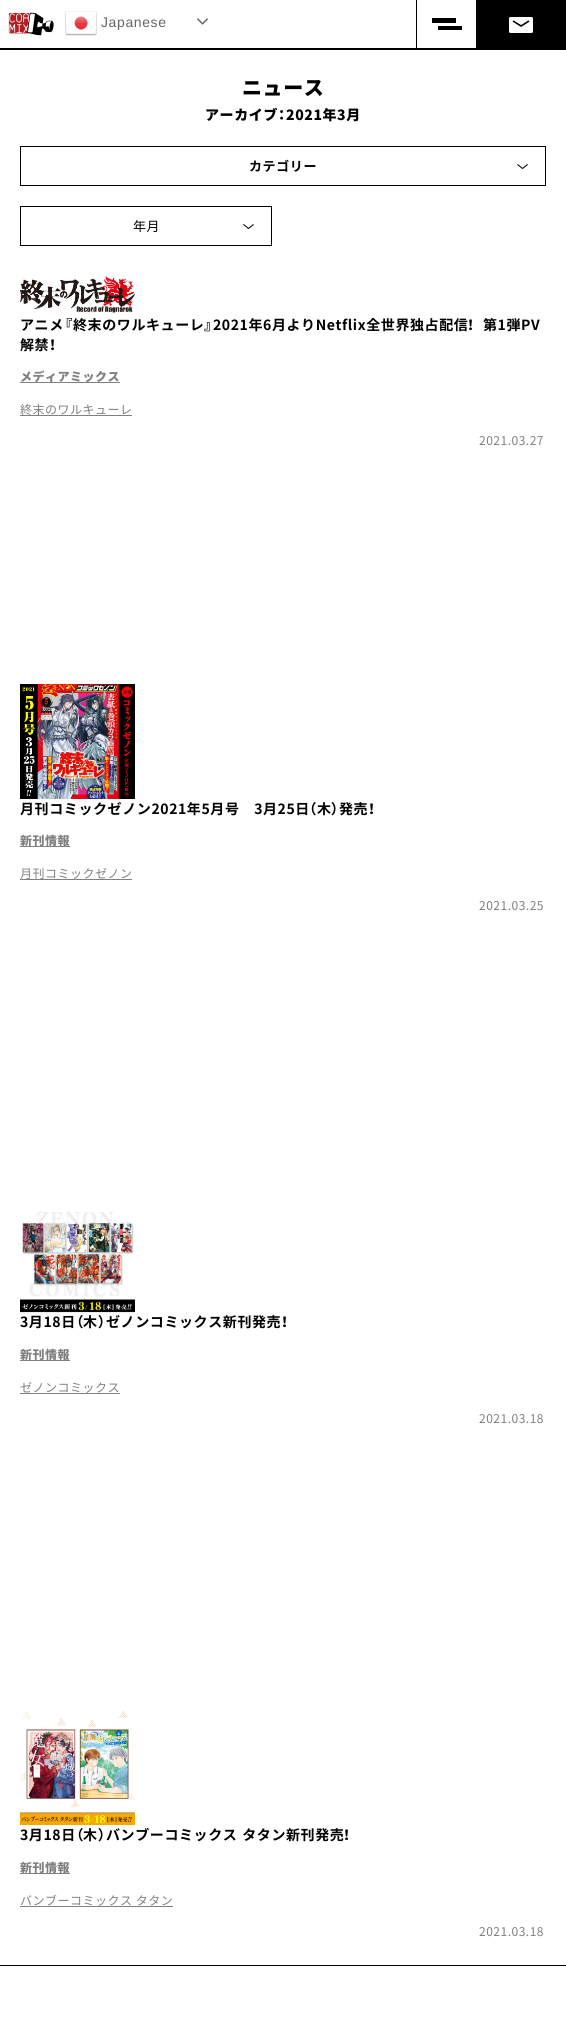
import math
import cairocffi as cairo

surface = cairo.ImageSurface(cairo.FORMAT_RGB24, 566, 2030)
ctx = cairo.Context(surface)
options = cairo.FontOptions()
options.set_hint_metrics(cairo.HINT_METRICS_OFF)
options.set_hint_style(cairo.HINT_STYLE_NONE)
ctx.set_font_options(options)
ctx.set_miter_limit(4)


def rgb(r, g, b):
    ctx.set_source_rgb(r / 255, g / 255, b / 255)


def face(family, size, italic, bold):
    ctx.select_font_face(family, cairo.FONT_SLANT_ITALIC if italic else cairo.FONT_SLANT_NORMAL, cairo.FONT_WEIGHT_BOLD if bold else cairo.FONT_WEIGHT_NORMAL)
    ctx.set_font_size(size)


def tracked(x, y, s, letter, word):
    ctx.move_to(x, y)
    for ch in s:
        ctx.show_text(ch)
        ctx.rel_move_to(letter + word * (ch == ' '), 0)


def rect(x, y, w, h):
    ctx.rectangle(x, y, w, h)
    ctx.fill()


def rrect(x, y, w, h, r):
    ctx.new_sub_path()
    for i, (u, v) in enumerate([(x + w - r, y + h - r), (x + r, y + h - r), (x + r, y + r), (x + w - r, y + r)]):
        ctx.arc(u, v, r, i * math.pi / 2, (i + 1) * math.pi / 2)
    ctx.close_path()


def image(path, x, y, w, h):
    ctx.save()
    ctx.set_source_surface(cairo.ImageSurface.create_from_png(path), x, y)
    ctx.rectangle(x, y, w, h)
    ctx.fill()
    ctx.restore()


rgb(255, 255, 255)
ctx.paint()
rgb(0, 0, 0)
rect(0, 48, 566, 2)
image('image0.png', 8, 12, 46, 24)
rect(416, 0, 1, 48)
rect(432, 18, 24, 5)
rect(438, 26, 24, 4)
rect(476, 0, 90, 48)
rgb(255, 255, 255)
rrect(509, 17, 24, 16, 1.5)
ctx.fill()
ctx.new_path()
ctx.move_to(513, 21)
ctx.line_to(521, 26)
ctx.line_to(529, 21)
rgb(0, 0, 0)
ctx.set_line_width(1.6)
ctx.set_line_join(cairo.LINE_JOIN_ROUND)
ctx.stroke()
image('image1.png', 65, 11, 32, 25)
face('Liberation Sans', 14, 0, 0)
rgb(102, 102, 102)
tracked(101, 27, 'Japanese', 0.6, 0)
image('image2.png', 197, 18, 11, 7)
face('Noto Sans JP Black', 20, 0, 0)
rgb(0, 0, 0)
tracked(242, 95, 'ニュース', 0.6, 0)
face('Noto Sans JP Black', 14, 0, 0)
tracked(205, 120, 'アーカイブ', 0.6, 0)
face('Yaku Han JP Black', 14, 0, 0)
tracked(278, 120, '：', 0.6, 0)
face('Noto Sans JP Black', 14, 0, 0)
tracked(286, 120, '2021年3月', 0.6, 0)
ctx.rectangle(20.5, 146.5, 525, 39)
ctx.set_line_width(1)
ctx.set_line_join(cairo.LINE_JOIN_MITER)
ctx.stroke()
face('Noto Sans JP', 13, 0, 1)
tracked(249, 171, 'カテゴリー', 0.6, 0)
image('image3.png', 517, 164, 11, 5)
ctx.rectangle(20.5, 206.5, 251, 39)
ctx.stroke()
face('Noto Sans JP', 13, 0, 0)
tracked(133, 231, '年月', 0.6, 0)
image('image3.png', 243, 224, 11, 5)
image('image4.png', 20, 276, 115, 37)
face('Noto Sans JP', 14, 0, 1)
tracked(20, 330, 'アニメ', 0.6, 0)
face('Yaku Han JP', 14, 0, 1)
tracked(64, 330, '『', 0.6, 0)
face('Noto Sans JP', 14, 0, 1)
tracked(73, 330, '終末のワルキューレ', 0.6, 0)
face('Yaku Han JP', 14, 0, 1)
tracked(204, 330, '』', 0.6, 0)
face('Noto Sans JP', 14, 0, 1)
tracked(213, 330, '2021年6月よりNetflix全世界独占配信', 0.6, 0)
face('Yaku Han JP', 14, 0, 1)
tracked(467, 330, '！', 0.6, 0)
face('Noto Sans JP', 14, 0, 1)
tracked(483, 330, '第1弾PV', 0.6, 0)
tracked(20, 350, '解禁', 0.6, 0)
face('Yaku Han JP', 14, 0, 1)
tracked(49, 350, '！', 0.6, 0)
rgb(128, 128, 128)
rect(20, 382, 100, 1)
face('Noto Sans JP Black', 12, 0, 0)
tracked(20, 381, 'メディアミックス', 0.5, 0)
face('Noto Sans JP', 12, 0, 0)
tracked(20, 414, '終末のワルキューレ', 0.5, 0)
rect(20, 415, 112, 1)
tracked(479, 445, '2021.03.27', 0.5, 0)
image('image5.png', 20, 684, 115, 115)
face('Noto Sans JP', 14, 0, 1)
rgb(0, 0, 0)
tracked(20, 814, '月刊コミックゼノン2021年5月号　3月25日', 0.6, 0)
face('Yaku Han JP', 14, 0, 1)
tracked(309, 814, '（', 0.6, 0)
face('Noto Sans JP', 14, 0, 1)
tracked(317, 814, '木', 0.6, 0)
face('Yaku Han JP', 14, 0, 1)
tracked(331, 814, '）', 0.6, 0)
face('Noto Sans JP', 14, 0, 1)
tracked(339, 814, '発売', 0.6, 0)
face('Yaku Han JP', 14, 0, 1)
tracked(368, 814, '！', 0.6, 0)
rgb(128, 128, 128)
rect(20, 846, 50, 1)
face('Noto Sans JP Black', 12, 0, 0)
tracked(20, 845, '新刊情報', 0.5, 0)
face('Noto Sans JP', 12, 0, 0)
tracked(20, 878, '月刊コミックゼノン', 0.5, 0)
rect(20, 879, 112, 1)
tracked(479, 910, '2021.03.25', 0.5, 0)
image('image6.png', 20, 1212, 115, 101)
face('Noto Sans JP', 14, 0, 1)
rgb(0, 0, 0)
tracked(20, 1327, '3月18日', 0.6, 0)
face('Yaku Han JP', 14, 0, 1)
tracked(76, 1327, '（', 0.6, 0)
face('Noto Sans JP', 14, 0, 1)
tracked(83, 1327, '木', 0.6, 0)
face('Yaku Han JP', 14, 0, 1)
tracked(98, 1327, '）', 0.6, 0)
face('Noto Sans JP', 14, 0, 1)
tracked(106, 1327, 'ゼノンコミックス新刊発売', 0.6, 0)
face('Yaku Han JP', 14, 0, 1)
tracked(281, 1327, '！', 0.6, 0)
rgb(128, 128, 128)
rect(20, 1360, 50, 1)
face('Noto Sans JP Black', 12, 0, 0)
tracked(20, 1359, '新刊情報', 0.5, 0)
face('Noto Sans JP', 12, 0, 0)
tracked(20, 1392, 'ゼノンコミックス', 0.5, 0)
rect(20, 1393, 100, 1)
tracked(479, 1423, '2021.03.18', 0.5, 0)
image('image7.png', 20, 1710, 115, 115)
face('Noto Sans JP', 14, 0, 1)
rgb(0, 0, 0)
tracked(20, 1840, '3月18日', 0.6, 0)
face('Yaku Han JP', 14, 0, 1)
tracked(76, 1840, '（', 0.6, 0)
face('Noto Sans JP', 14, 0, 1)
tracked(83, 1840, '木', 0.6, 0)
face('Yaku Han JP', 14, 0, 1)
tracked(98, 1840, '）', 0.6, 0)
face('Noto Sans JP', 14, 0, 1)
tracked(106, 1840, 'バンブーコミックス タタン新刊発売', 0.6, 1)
face('Yaku Han JP', 14, 0, 1)
tracked(343, 1840, '！', 0.6, 0)
rgb(128, 128, 128)
rect(20, 1873, 50, 1)
face('Noto Sans JP Black', 12, 0, 0)
tracked(20, 1872, '新刊情報', 0.5, 0)
face('Noto Sans JP', 12, 0, 0)
tracked(20, 1905, 'バンブーコミックス タタン', 0.5, 0)
rect(20, 1906, 153, 1)
tracked(479, 1936, '2021.03.18', 0.5, 0)
rgb(0, 0, 0)
rect(0, 1965, 566, 1)
surface.write_to_png('render.png')
